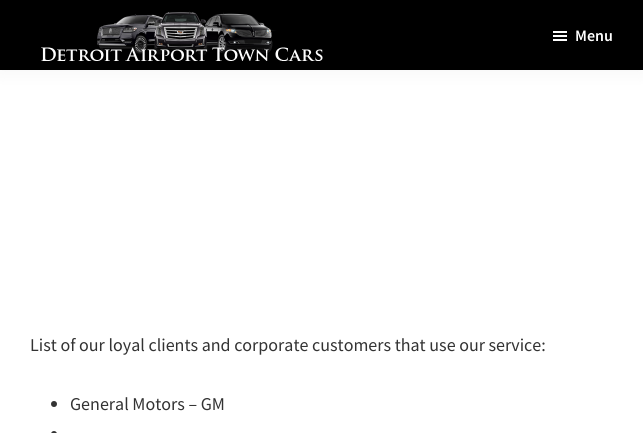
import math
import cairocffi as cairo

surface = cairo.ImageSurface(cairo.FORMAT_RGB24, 643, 433)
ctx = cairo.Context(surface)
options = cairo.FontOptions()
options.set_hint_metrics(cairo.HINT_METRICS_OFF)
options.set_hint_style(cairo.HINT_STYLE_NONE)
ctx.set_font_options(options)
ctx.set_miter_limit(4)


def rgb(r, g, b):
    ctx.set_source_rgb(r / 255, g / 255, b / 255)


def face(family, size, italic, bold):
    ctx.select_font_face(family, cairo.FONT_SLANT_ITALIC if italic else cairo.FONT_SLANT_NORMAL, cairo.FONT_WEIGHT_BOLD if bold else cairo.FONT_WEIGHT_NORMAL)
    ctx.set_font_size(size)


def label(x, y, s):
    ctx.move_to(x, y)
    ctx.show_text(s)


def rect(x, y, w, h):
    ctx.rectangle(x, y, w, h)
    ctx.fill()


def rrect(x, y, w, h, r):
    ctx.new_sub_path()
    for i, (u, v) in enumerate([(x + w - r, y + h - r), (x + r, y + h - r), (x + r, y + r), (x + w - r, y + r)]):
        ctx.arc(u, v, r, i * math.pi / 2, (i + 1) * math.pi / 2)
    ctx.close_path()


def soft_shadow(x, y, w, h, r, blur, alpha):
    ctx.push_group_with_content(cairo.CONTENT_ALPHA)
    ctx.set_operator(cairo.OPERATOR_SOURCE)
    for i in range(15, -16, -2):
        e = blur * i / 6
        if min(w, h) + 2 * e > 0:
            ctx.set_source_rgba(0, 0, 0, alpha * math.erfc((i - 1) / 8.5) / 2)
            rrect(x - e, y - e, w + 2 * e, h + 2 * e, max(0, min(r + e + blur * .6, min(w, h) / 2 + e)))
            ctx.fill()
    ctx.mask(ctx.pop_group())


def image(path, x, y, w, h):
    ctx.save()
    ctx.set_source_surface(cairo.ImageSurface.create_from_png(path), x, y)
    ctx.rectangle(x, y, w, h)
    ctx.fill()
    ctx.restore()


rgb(255, 255, 255)
ctx.paint()
rgb(0, 0, 0)
soft_shadow(0, 0, 643, 70, 0, 10, 0.05)
rgb(0, 0, 0)
rect(0, 0, 643, 70)
image('image0.png', 41, 11, 282, 50)
image('image1.png', 553, 31, 14, 10)
face('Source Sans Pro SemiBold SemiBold', 16, 0, 0)
rgb(255, 255, 255)
label(575, 41, 'Menu')
face('Source Sans Pro', 18, 0, 0)
rgb(51, 51, 51)
label(30, 351, 'List of our loyal clients and corporate customers that use our service:')
ctx.new_path()
ctx.arc(54, 404, 3, 0, 2 * math.pi)
ctx.fill()
label(70, 410, 'General Motors – GM')
rrect(51, 431, 6, 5, 3)
ctx.fill()
surface.write_to_png('render.png')
